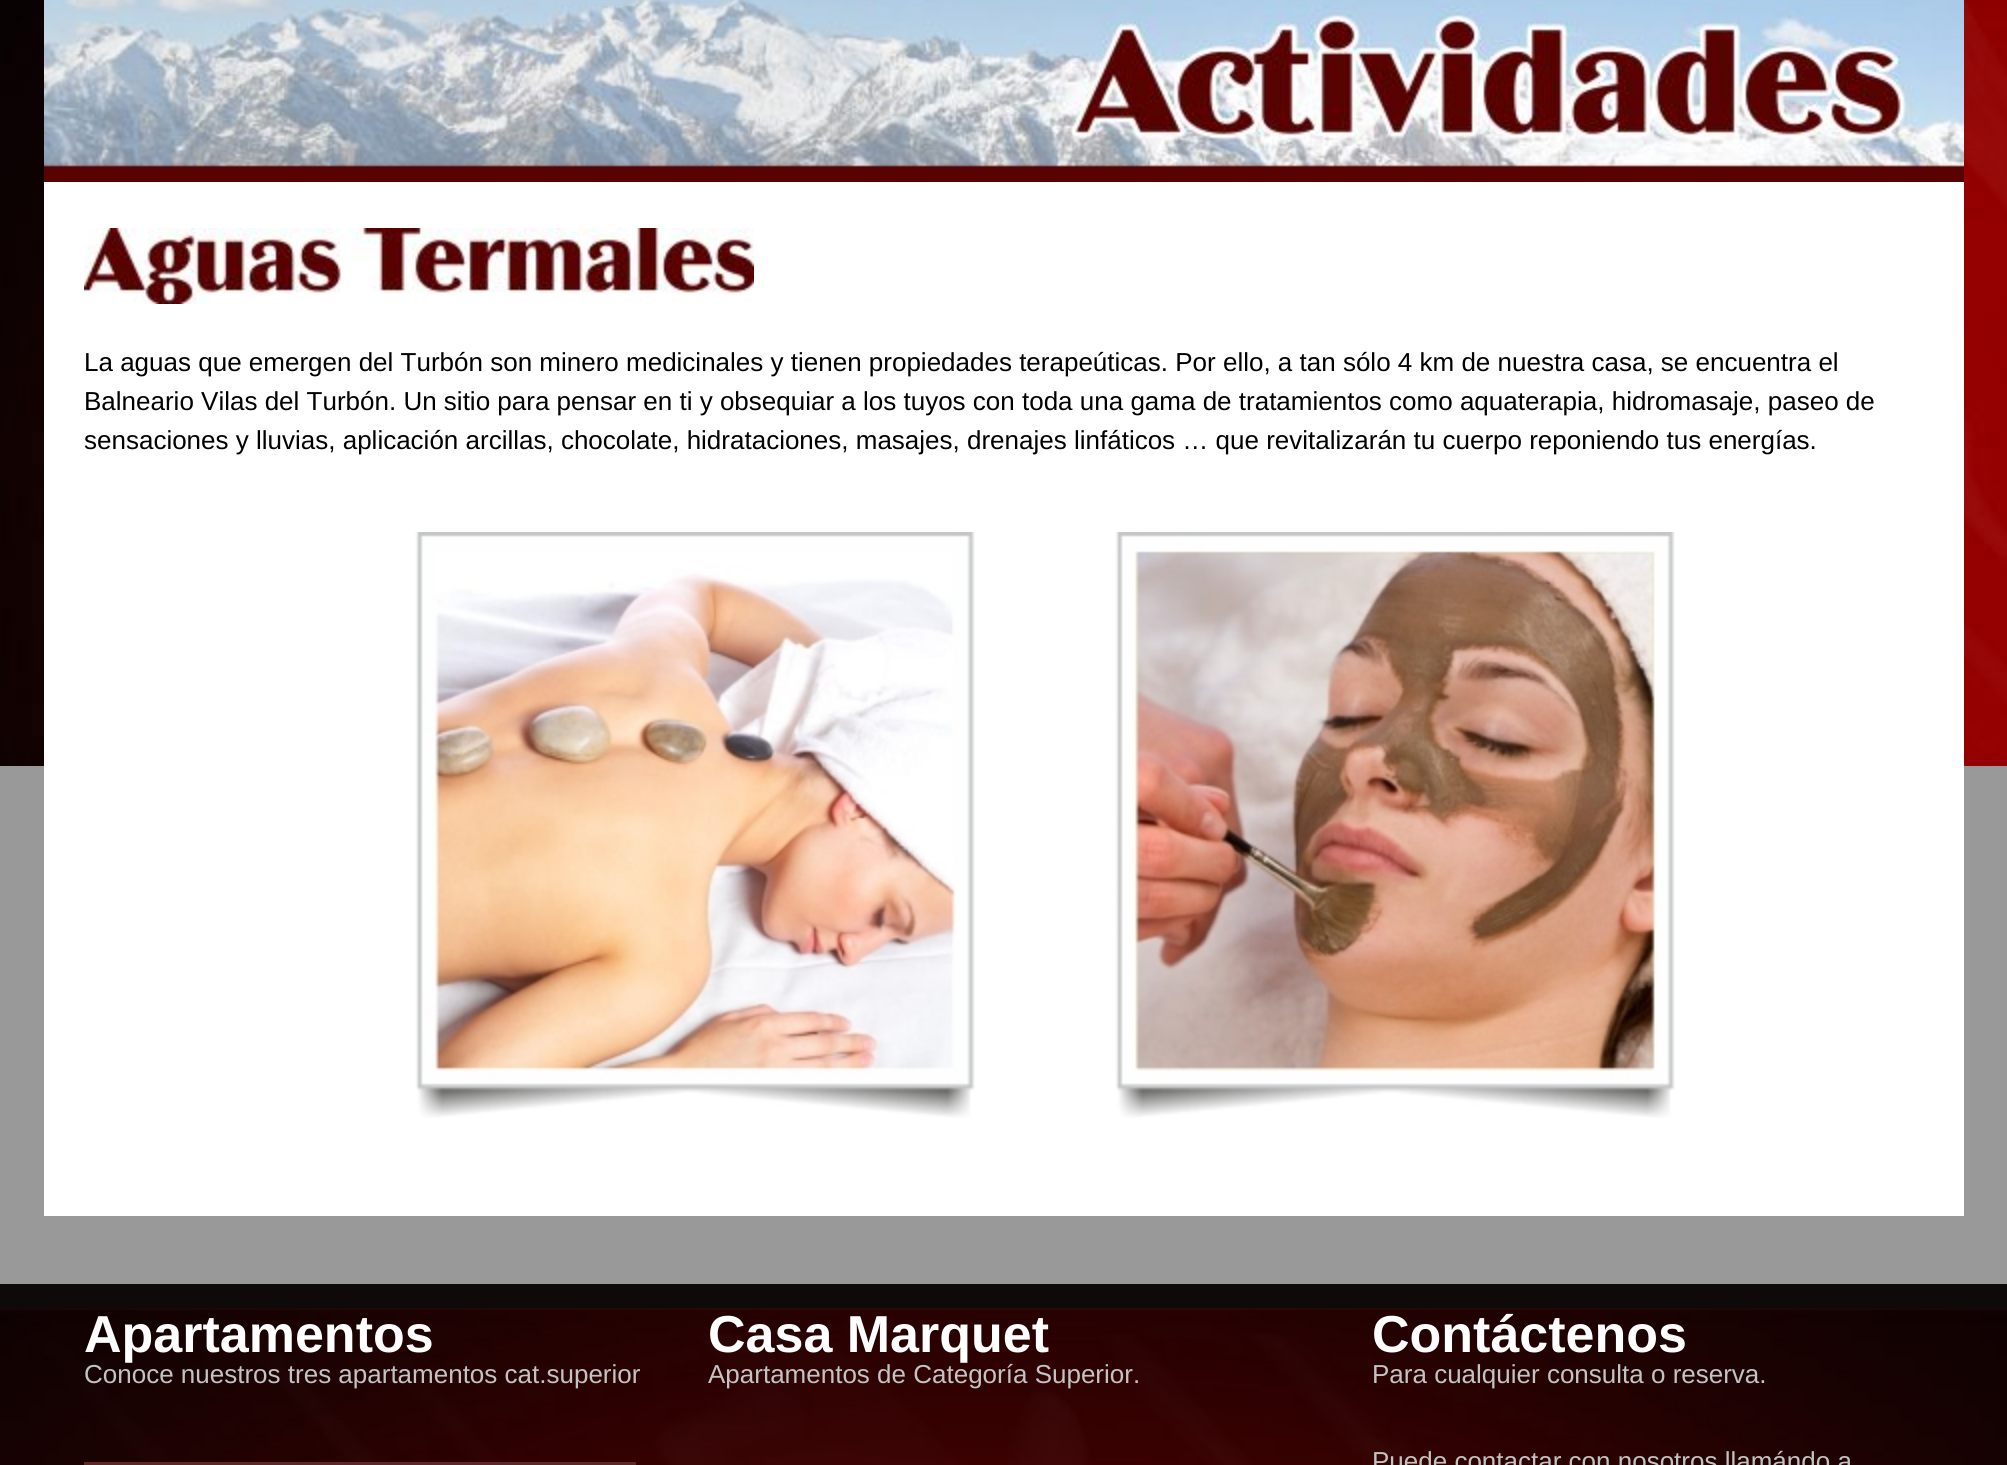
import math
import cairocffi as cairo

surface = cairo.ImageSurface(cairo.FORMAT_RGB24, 2007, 1465)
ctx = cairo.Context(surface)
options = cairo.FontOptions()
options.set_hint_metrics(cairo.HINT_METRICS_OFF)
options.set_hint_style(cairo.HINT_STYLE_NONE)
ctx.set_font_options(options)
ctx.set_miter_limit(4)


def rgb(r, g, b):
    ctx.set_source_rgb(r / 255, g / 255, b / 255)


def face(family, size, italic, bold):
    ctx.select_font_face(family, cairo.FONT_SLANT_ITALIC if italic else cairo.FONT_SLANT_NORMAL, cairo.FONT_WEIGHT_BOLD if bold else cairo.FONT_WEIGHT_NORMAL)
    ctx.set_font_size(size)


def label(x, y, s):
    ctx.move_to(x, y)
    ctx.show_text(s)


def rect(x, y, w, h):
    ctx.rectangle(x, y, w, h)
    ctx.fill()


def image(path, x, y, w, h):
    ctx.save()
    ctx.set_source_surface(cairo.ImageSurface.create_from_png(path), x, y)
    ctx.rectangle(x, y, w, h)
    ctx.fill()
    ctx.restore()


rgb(153, 153, 153)
ctx.paint()
image('image0.png', 0, 0, 2007, 766)
image('image1.png', 44, 0, 1920, 182)
rgb(255, 255, 255)
rect(44, 182, 1920, 1034)
image('image2.png', 84, 228, 670, 76)
face('Liberation Sans', 26, 0, 0)
rgb(0, 0, 0)
label(84, 371, 'La aguas que emergen del Turbón son minero medicinales y tienen propiedades terapeúticas. Por ello, a tan sólo 4 km de nuestra casa, se encuentra el')
label(84, 410, 'Balneario Vilas del Turbón. Un sitio para pensar en ti y obsequiar a los tuyos con toda una gama de tratamientos como aquaterapia, hidromasaje, paseo de')
label(84, 449, 'sensaciones y lluvias, aplicación arcillas, chocolate, hidrataciones, masajes, drenajes linfáticos … que revitalizarán tu cuerpo reponiendo tus energías.')
image('image3.png', 415, 532, 560, 586)
image('image4.png', 1115, 532, 560, 586)
rgb(14, 10, 10)
rect(0, 1284, 2007, 24)
image('image5.png', 0, 1308, 2007, 157)
face('Liberation Sans', 52, 0, 1)
rgb(255, 255, 255)
label(84, 1352, 'Apartamentos')
face('Liberation Sans', 26, 0, 0)
rgb(195, 195, 195)
label(84, 1383, 'Conoce nuestros tres apartamentos cat.superior')
rgb(92, 39, 39)
rect(84, 1462, 552, 3)
face('Liberation Sans', 52, 0, 1)
rgb(255, 255, 255)
label(708, 1352, 'Casa Marquet')
face('Liberation Sans', 26, 0, 0)
rgb(195, 195, 195)
label(708, 1383, 'Apartamentos de Categoría Superior.')
face('Liberation Sans', 52, 0, 1)
rgb(255, 255, 255)
label(1372, 1352, 'Contáctenos')
face('Liberation Sans', 26, 0, 0)
rgb(195, 195, 195)
label(1372, 1383, 'Para cualquier consulta o reserva.')
label(1372, 1470, 'Puede contactar con nosotros llamándo a')
surface.write_to_png('render.png')
